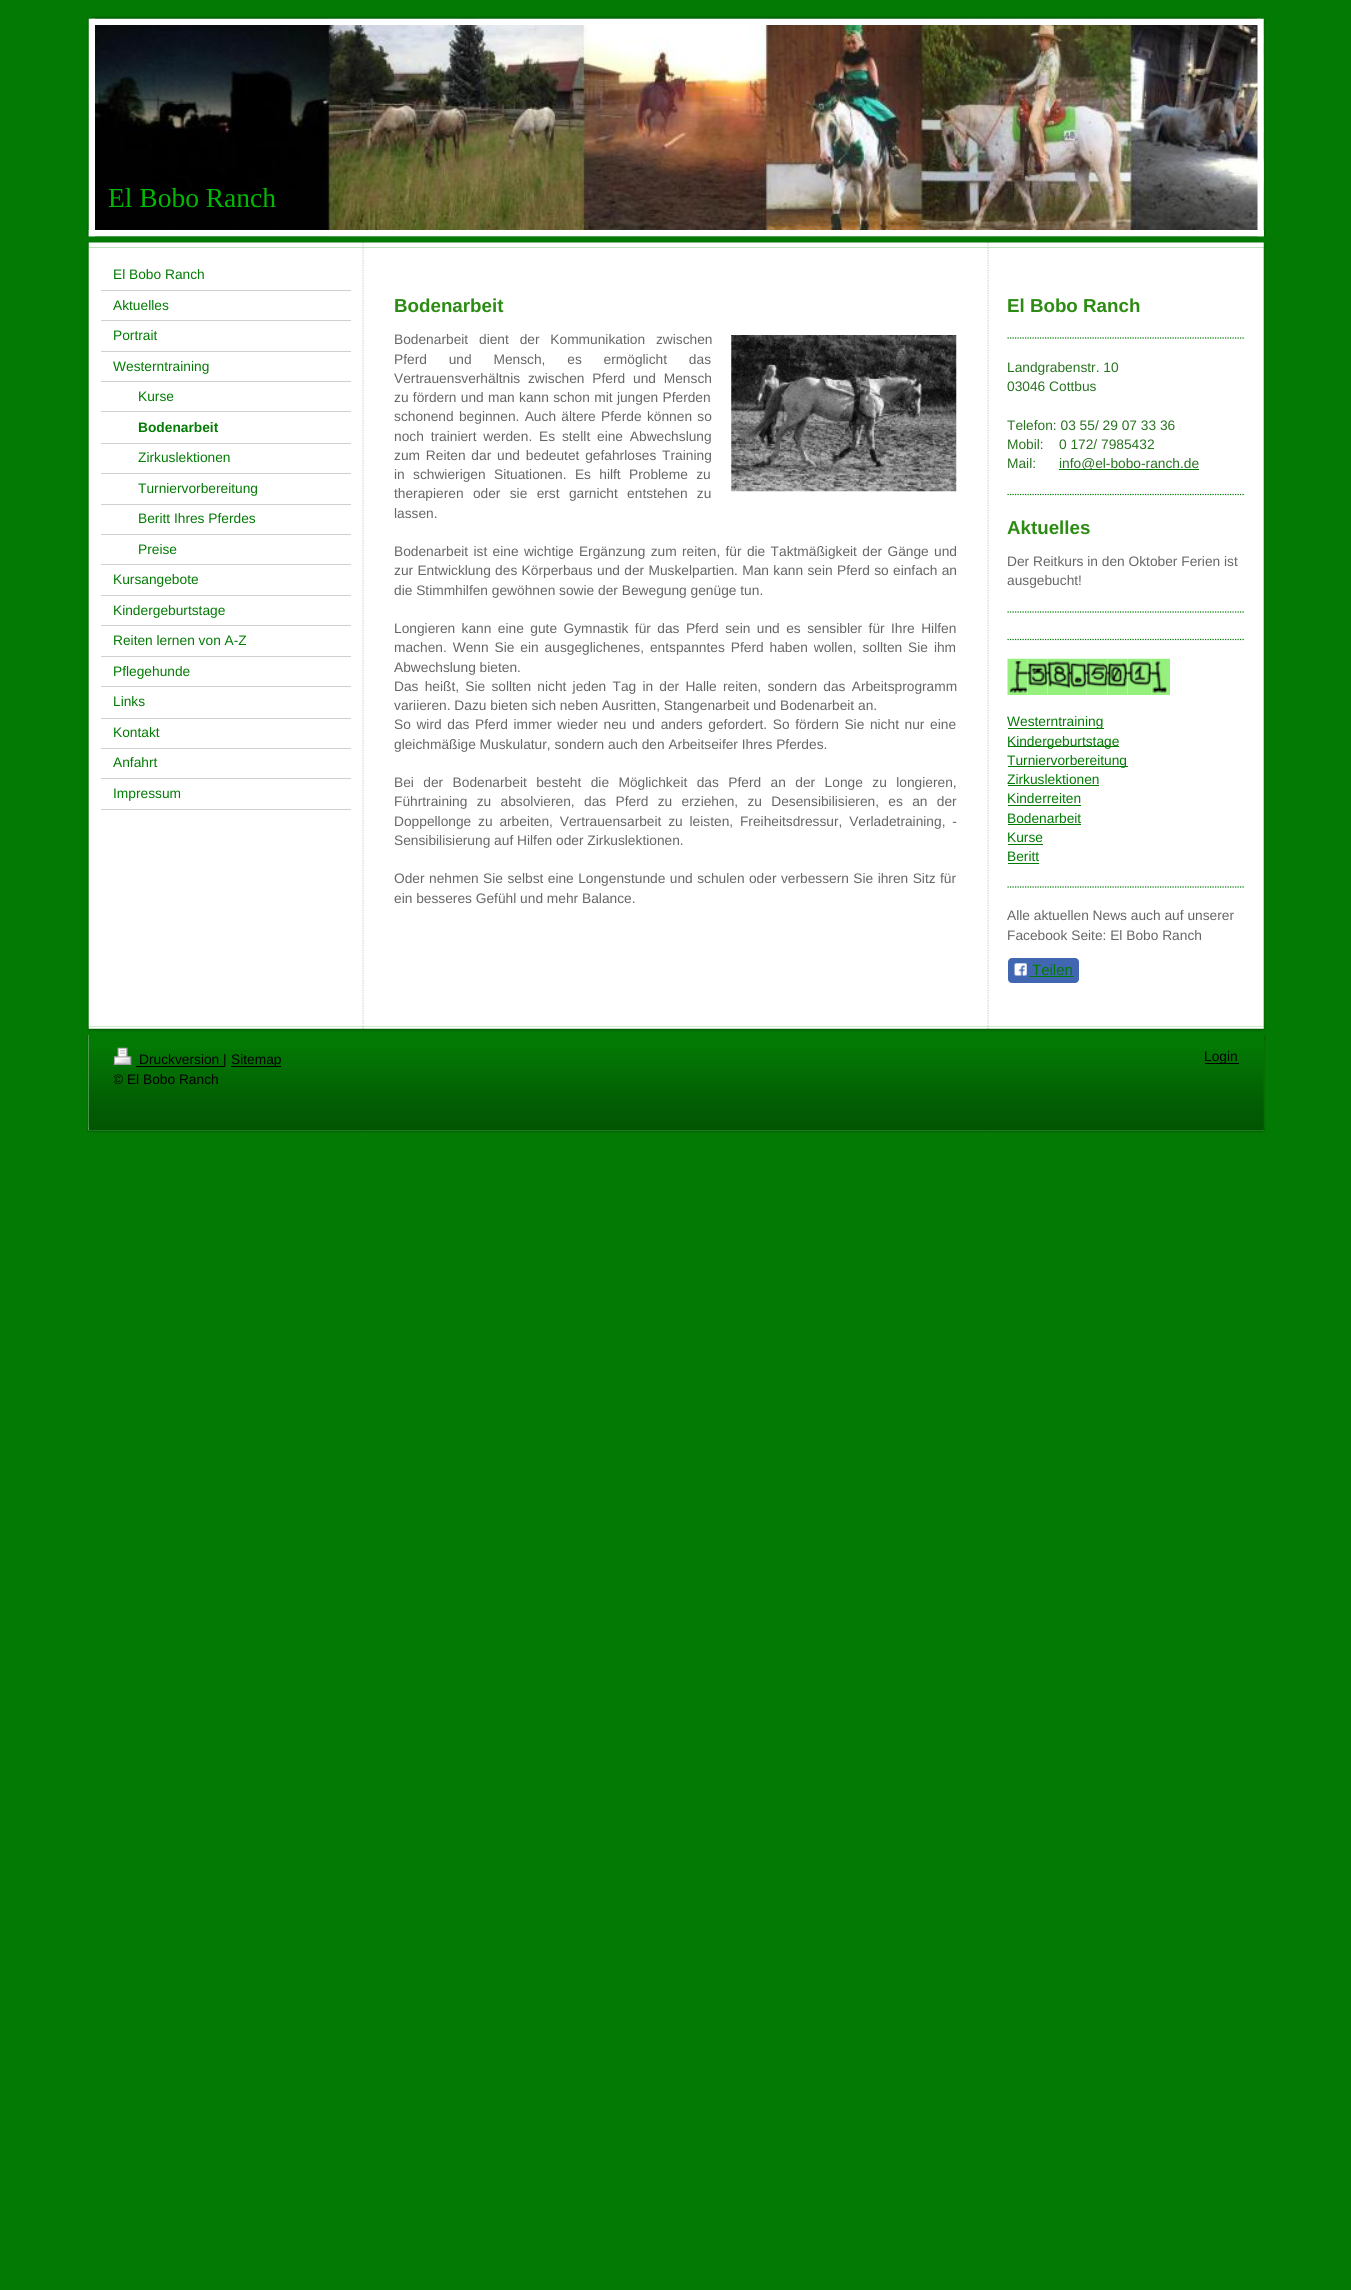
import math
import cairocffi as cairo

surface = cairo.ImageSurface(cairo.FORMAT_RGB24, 1351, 2290)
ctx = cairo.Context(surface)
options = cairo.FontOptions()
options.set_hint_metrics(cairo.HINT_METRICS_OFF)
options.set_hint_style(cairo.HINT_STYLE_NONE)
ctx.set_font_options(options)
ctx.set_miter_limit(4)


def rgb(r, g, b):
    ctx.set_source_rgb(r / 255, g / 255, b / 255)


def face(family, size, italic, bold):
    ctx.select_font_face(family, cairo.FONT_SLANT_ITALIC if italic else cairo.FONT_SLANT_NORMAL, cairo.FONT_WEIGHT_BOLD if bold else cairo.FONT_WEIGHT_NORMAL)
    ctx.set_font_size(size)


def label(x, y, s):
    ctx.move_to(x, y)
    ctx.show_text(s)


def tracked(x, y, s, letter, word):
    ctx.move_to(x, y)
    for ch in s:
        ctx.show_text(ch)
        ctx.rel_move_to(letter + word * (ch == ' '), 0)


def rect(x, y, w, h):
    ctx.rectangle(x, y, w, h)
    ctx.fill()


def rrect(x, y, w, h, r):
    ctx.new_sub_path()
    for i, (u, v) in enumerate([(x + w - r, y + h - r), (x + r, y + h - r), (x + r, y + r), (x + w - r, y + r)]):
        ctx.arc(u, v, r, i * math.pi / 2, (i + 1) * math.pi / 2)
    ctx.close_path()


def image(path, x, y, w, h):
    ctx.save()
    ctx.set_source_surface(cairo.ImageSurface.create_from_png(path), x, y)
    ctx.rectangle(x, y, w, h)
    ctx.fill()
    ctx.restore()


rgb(3, 122, 4)
ctx.paint()
image('image2.png', 88, 18, 1176, 219)
image('image0.png', 90, 16, 1170, 9)
image('image1.png', 87, 18, 8, 219)
face('Liberation Serif', 27.5, 0, 0)
rgb(2, 184, 4)
label(108, 207, 'El Bobo Ranch')
image('image3.png', 1257, 18, 9, 219)
image('image4.png', 87, 230, 1179, 7)
image('image5.png', 87, 242, 1179, 6)
image('image6.png', 87, 1026, 1179, 6)
image('image7.png', 87, 247, 1179, 780)
rgb(207, 208, 209)
rect(101, 290, 250, 1)
face('Liberation Sans', 13.75, 0, 0)
rgb(3, 122, 4)
label(113, 279, 'El Bobo Ranch')
rgb(207, 208, 209)
rect(101, 320, 250, 1)
rgb(3, 122, 4)
label(113, 310, 'Aktuelles')
rgb(207, 208, 209)
rect(101, 351, 250, 1)
rgb(3, 122, 4)
label(113, 340, 'Portrait')
rgb(207, 208, 209)
rect(101, 381, 250, 1)
rgb(3, 122, 4)
label(113, 371, 'Westerntraining')
rgb(207, 208, 209)
rect(101, 411, 250, 1)
rgb(3, 122, 4)
label(138, 401, 'Kurse')
rgb(207, 208, 209)
rect(101, 443, 250, 1)
face('Liberation Sans', 13.75, 0, 1)
rgb(3, 122, 4)
label(138, 432, 'Bodenarbeit')
rgb(207, 208, 209)
rect(101, 473, 250, 1)
face('Liberation Sans', 13.75, 0, 0)
rgb(3, 122, 4)
label(138, 462, 'Zirkuslektionen')
rgb(207, 208, 209)
rect(101, 504, 250, 1)
rgb(3, 122, 4)
label(138, 493, 'Turniervorbereitung')
rgb(207, 208, 209)
rect(101, 534, 250, 1)
rgb(3, 122, 4)
label(138, 523, 'Beritt Ihres Pferdes')
rgb(207, 208, 209)
rect(101, 564, 250, 1)
rgb(3, 122, 4)
label(138, 554, 'Preise')
rgb(207, 208, 209)
rect(101, 595, 250, 1)
rgb(3, 122, 4)
label(113, 584, 'Kursangebote')
rgb(207, 208, 209)
rect(101, 625, 250, 1)
rgb(3, 122, 4)
label(113, 615, 'Kindergeburtstage')
rgb(207, 208, 209)
rect(101, 656, 250, 1)
rgb(3, 122, 4)
label(113, 645, 'Reiten lernen von A-Z')
rgb(207, 208, 209)
rect(101, 686, 250, 1)
rgb(3, 122, 4)
label(113, 676, 'Pflegehunde')
rgb(207, 208, 209)
rect(101, 718, 250, 1)
rgb(3, 122, 4)
label(113, 706, 'Links')
rgb(207, 208, 209)
rect(101, 748, 250, 1)
rgb(3, 122, 4)
label(113, 737, 'Kontakt')
rgb(207, 208, 209)
rect(101, 778, 250, 1)
rgb(3, 122, 4)
label(113, 767, 'Anfahrt')
rgb(207, 208, 209)
rect(101, 809, 250, 1)
rgb(3, 122, 4)
label(113, 798, 'Impressum')
face('Liberation Sans', 18.75, 0, 1)
rgb(44, 139, 19)
label(394, 312, 'Bodenarbeit')
face('Liberation Sans', 13.75, 0, 0)
rgb(102, 102, 102)
tracked(394, 344, 'Bodenarbeit dient der Kommunikation zwischen', 0, 7)
tracked(394, 364, 'Pferd und Mensch, es ermöglicht das', 0, 18)
tracked(394, 383, 'Vertrauensverhältnis zwischen Pferd und Mensch', 0, 4)
tracked(394, 402, 'zu fördern und man kann schon mit jungen Pferden', 0, 0.5)
tracked(394, 421, 'schonend beginnen. Auch ältere Pferde können so', 0, 1.5)
tracked(394, 441, 'noch trainiert werden. Es stellt eine Abwechslung', 0, 3)
tracked(394, 460, 'zum Reiten dar und bedeutet gefahrloses Training', 0, 2)
tracked(394, 479, 'in schwierigen Situationen. Es hilft Probleme zu', 0, 4.5)
tracked(394, 498, 'therapieren oder sie erst garnicht entstehen zu', 0, 5.5)
label(394, 518, 'lassen.')
tracked(394, 556, 'Bodenarbeit ist eine wichtige Ergänzung zum reiten, für die Taktmäßigkeit der Gänge und', 0, 1.5)
tracked(394, 575, 'zur Entwicklung des Körperbaus und der Muskelpartien. Man kann sein Pferd so einfach an', 0, 0.5)
label(394, 595, 'die Stimmhilfen gewöhnen sowie der Bewegung genüge tun.')
tracked(394, 633, 'Longieren kann eine gute Gymnastik für das Pferd sein und es sensibler für Ihre Hilfen', 0, 2.6)
tracked(394, 652, 'machen. Wenn Sie ein ausgeglichenes, entspanntes Pferd haben wollen, sollten Sie ihm', 0, 2.1)
label(394, 672, 'Abwechslung bieten.')
tracked(394, 691, 'Das heißt, Sie sollten nicht jeden Tag in der Halle reiten, sondern das Arbeitsprogramm', 0, 2.4)
label(394, 710, 'variieren. Dazu bieten sich neben Ausritten, Stangenarbeit und Bodenarbeit an.')
tracked(394, 729, 'So wird das Pferd immer wieder neu und anders gefordert. So fördern Sie nicht nur eine', 0, 1.8)
label(394, 749, 'gleichmäßige Muskulatur, sondern auch den Arbeitseifer Ihres Pferdes.')
tracked(394, 787, 'Bei der Bodenarbeit besteht die Möglichkeit das Pferd an der Longe zu longieren,', 0, 5.6)
tracked(394, 806, 'Führtraining zu absolvieren, das Pferd zu erziehen, zu Desensibilisieren, es an der', 0, 5.5)
tracked(394, 826, 'Doppellonge zu arbeiten, Vertrauensarbeit zu leisten, Freiheitsdressur, Verladetraining, -', 0, 3)
label(394, 845, 'Sensibilisierung auf Hilfen oder Zirkuslektionen.')
tracked(394, 883, 'Oder nehmen Sie selbst eine Longenstunde und schulen oder verbessern Sie ihren Sitz für', 0, 0.6)
label(394, 903, 'ein besseres Gefühl und mehr Balance.')
image('image8.png', 731, 335, 226, 157)
face('Liberation Sans', 18.75, 0, 1)
rgb(44, 139, 19)
label(1007, 312, 'El Bobo Ranch')
ctx.new_path()
ctx.move_to(1007.5, 338)
ctx.line_to(1245, 338)
rgb(3, 122, 4)
ctx.set_line_width(1.2)
ctx.set_dash([1.25, 1.25])
ctx.stroke()
face('Liberation Sans', 13.75, 0, 0)
rgb(40, 115, 32)
label(1007, 372, 'Landgrabenstr. 10')
label(1007, 391, '03046 Cottbus')
label(1007, 430, 'Telefon: 03 55/ 29 07 33 36')
label(1007, 449, 'Mobil:    0 172/ 7985432')
label(1007, 468, 'Mail:')
rgb(3, 122, 4)
rect(1059, 469, 140, 1)
rgb(40, 115, 32)
label(1059, 468, 'info@el-bobo-ranch.de')
ctx.new_path()
ctx.move_to(1007.5, 494.5)
ctx.line_to(1245, 494.5)
rgb(3, 122, 4)
ctx.stroke()
face('Liberation Sans', 18.75, 0, 1)
rgb(44, 139, 19)
label(1007, 534, 'Aktuelles')
face('Liberation Sans', 13.75, 0, 0)
rgb(102, 102, 102)
label(1007, 566, 'Der Reitkurs in den Oktober Ferien ist')
label(1007, 585, 'ausgebucht!')
ctx.new_path()
ctx.move_to(1007.5, 612)
ctx.line_to(1245, 612)
rgb(3, 122, 4)
ctx.stroke()
ctx.new_path()
ctx.move_to(1007.5, 639.5)
ctx.line_to(1245, 639.5)
ctx.stroke()
image('image9.png', 1007, 658, 21, 37)
image('image10.png', 1027, 658, 21, 37)
image('image11.png', 1047, 658, 23, 37)
image('image12.png', 1070, 658, 17, 37)
image('image13.png', 1086, 658, 22, 37)
image('image14.png', 1107, 658, 21, 37)
image('image15.png', 1127, 658, 25, 37)
image('image16.png', 1151, 658, 19, 37)
rect(1008, 728, 96, 1)
label(1007, 726, 'Westerntraining')
rect(1008, 746, 111, 1)
label(1007, 746, 'Kindergeburtstage')
rect(1008, 766, 120, 1)
label(1007, 765, 'Turniervorbereitung')
label(1007, 784, 'Zirkuslektionen')
rect(1008, 785, 91, 1)
label(1007, 803, 'Kinderreiten')
rect(1008, 805, 73, 1)
label(1007, 823, 'Bodenarbeit')
rect(1008, 824, 73, 1)
label(1007, 842, 'Kurse')
rect(1008, 844, 35, 1)
label(1007, 861, 'Beritt')
rect(1008, 863, 31, 1)
ctx.new_path()
ctx.move_to(1007.5, 887)
ctx.line_to(1245, 887)
ctx.stroke()
rgb(102, 102, 102)
label(1007, 920, 'Alle aktuellen News auch auf unserer')
label(1007, 940, 'Facebook Seite: El Bobo Ranch')
rgb(66, 103, 178)
rrect(1008, 958, 71, 25, 4)
ctx.fill()
image('image17.png', 1014, 963, 13, 13)
face('Liberation Sans', 15, 0, 0)
rgb(3, 122, 4)
label(1032, 975, 'Teilen')
rect(1029, 976, 45, 1)
image('image18.png', 87, 1036, 1179, 4)
image('image19.png', 87, 1127, 1179, 6)
image('image20.png', 87, 1035, 1179, 95)
rect(89, 1035, 1175, 95)
image('image21.png', 88, 1049, 1176, 81)
image('image22.png', 113, 1047, 19, 18)
rgb(0, 0, 0)
rect(136, 1066, 88, 1)
face('Liberation Sans', 13.75, 0, 0)
label(139, 1064, 'Druckversion |')
rect(231, 1066, 50, 1)
label(231, 1064, 'Sitemap')
ctx.save()
ctx.rectangle(114, 1048, 1125, 41)
ctx.clip()
label(113, 1084, '© El Bobo Ranch')
ctx.restore()
rect(1205, 1063, 34, 1)
label(1204, 1061, 'Login')
surface.write_to_png('render.png')
